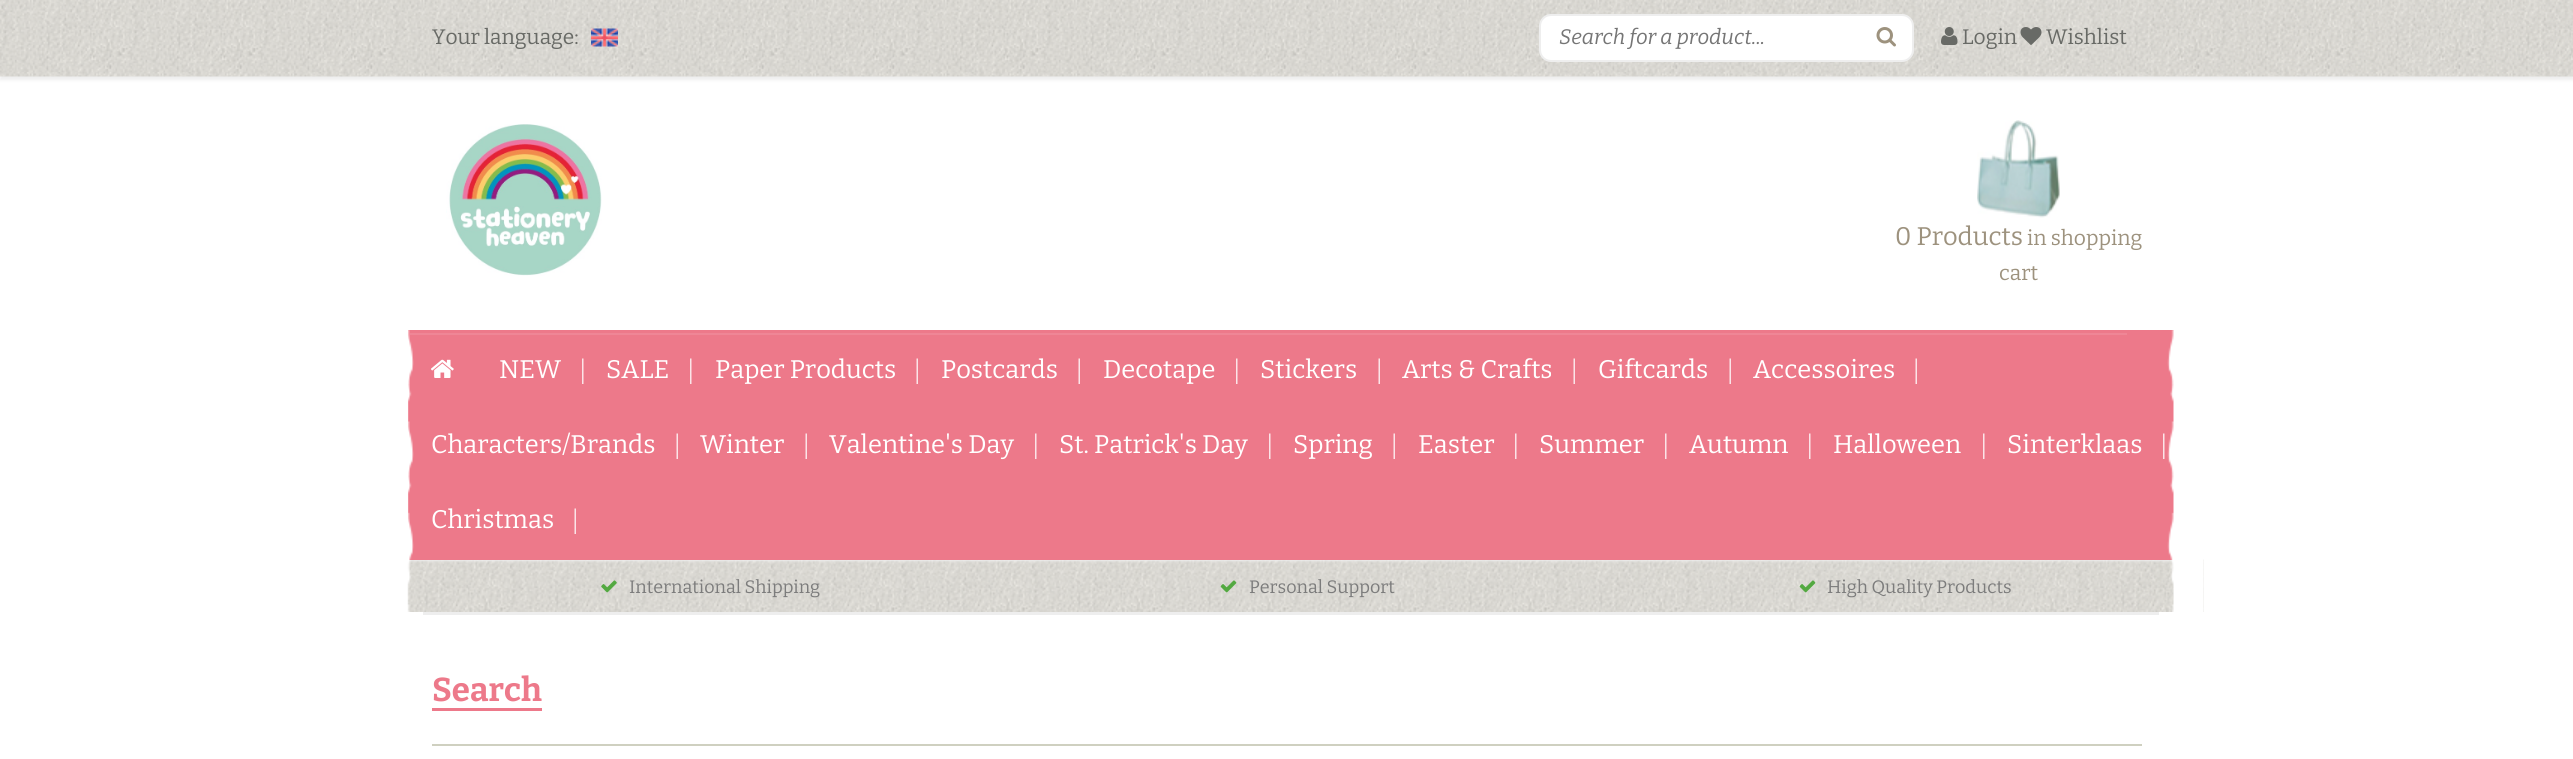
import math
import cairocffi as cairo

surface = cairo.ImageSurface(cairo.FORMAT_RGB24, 2573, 759)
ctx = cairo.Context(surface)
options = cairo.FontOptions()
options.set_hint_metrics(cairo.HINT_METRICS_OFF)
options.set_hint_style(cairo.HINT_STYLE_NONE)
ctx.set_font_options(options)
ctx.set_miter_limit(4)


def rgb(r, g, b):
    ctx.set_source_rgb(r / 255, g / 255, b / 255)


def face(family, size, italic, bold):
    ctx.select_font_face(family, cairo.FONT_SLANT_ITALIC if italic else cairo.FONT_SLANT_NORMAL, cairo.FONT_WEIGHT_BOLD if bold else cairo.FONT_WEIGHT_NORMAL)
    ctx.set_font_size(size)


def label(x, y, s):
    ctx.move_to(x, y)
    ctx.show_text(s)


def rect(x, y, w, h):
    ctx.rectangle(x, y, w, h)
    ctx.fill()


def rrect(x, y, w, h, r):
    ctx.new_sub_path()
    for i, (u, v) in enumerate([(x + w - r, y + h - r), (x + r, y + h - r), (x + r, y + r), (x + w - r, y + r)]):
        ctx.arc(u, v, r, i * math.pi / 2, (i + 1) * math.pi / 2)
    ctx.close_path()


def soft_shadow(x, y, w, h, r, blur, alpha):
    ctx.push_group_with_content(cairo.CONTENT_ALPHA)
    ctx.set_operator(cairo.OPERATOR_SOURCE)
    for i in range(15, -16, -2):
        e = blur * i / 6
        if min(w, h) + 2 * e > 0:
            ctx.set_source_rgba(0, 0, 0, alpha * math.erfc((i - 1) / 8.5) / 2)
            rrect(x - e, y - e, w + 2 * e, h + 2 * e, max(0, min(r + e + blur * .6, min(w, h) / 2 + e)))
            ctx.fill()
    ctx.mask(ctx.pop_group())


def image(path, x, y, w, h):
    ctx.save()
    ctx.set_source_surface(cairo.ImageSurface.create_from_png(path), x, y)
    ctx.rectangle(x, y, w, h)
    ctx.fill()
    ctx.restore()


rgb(255, 255, 255)
ctx.paint()
rgb(238, 238, 238)
soft_shadow(0, 3, 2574, 77, 0, 1.5, 1)
image('image0.png', 0, 0, 2573, 77)
face('Bitter', 21, 0, 0)
rgb(104, 106, 102)
label(432, 44, 'Your language:')
image('image1.png', 591, 28, 27, 19)
rgb(255, 255, 255)
rrect(1540, 15, 373, 46, 11)
ctx.fill_preserve()
rgb(238, 238, 238)
ctx.stroke()
face('Bitter', 21, 1, 0)
rgb(117, 117, 117)
label(1559, 44, 'Search for a product...')
image('image2.png', 1876, 27, 20, 20)
image('image3.png', 1941, 27, 17, 18)
face('Bitter', 21, 0, 0)
rgb(104, 106, 102)
label(1962, 44, 'Login')
image('image4.png', 2020, 27, 22, 18)
label(2046, 44, 'Wishlist')
image('image5.png', 446, 124, 156, 152)
image('image6.png', 1977, 120, 83, 98)
face('Bitter', 25.5, 0, 0)
rgb(157, 146, 126)
label(1895, 245, '0 Products')
face('Bitter', 21, 0, 0)
label(2027, 245, 'in shopping')
label(1999, 280, 'cart')
rgb(238, 238, 238)
ctx.new_path()
ctx.move_to(378, 612)
ctx.line_to(378, 615)
ctx.line_to(2204, 615)
ctx.line_to(2204, 563)
ctx.line_to(2204, 612)
ctx.close_path()
ctx.fill()
rgb(255, 255, 255)
rect(378, 612, 45, 3)
image('image12.png', 407, 559, 1797, 53)
rgb(238, 238, 238)
soft_shadow(408, 332, 1766, 229, 0, 1, 1)
rgb(237, 121, 138)
rect(408, 330, 1766, 230)
rgb(239, 134, 150)
rect(410, 333, 1717, 2)
image('image7.png', 378, 330, 36, 282)
image('image8.png', 431, 359, 23, 19)
face('Bitter', 25.5, 0, 0)
rgb(255, 255, 255)
label(499, 378, 'NEW')
image('image9.png', 582, 358, 2, 26)
label(606, 378, 'SALE')
image('image9.png', 690, 358, 2, 26)
label(715, 378, 'Paper Products')
image('image10.png', 916, 358, 2, 26)
label(941, 378, 'Postcards')
image('image10.png', 1078, 358, 2, 26)
label(1103, 378, 'Decotape')
image('image9.png', 1236, 358, 2, 26)
label(1260, 378, 'Stickers')
image('image10.png', 1378, 358, 2, 26)
label(1402, 378, 'Arts & Crafts')
image('image10.png', 1573, 358, 2, 26)
label(1598, 378, 'Giftcards')
image('image10.png', 1729, 358, 2, 26)
label(1753, 378, 'Accessoires')
image('image10.png', 1915, 358, 2, 26)
label(431, 453, 'Characters/Brands')
image('image10.png', 676, 433, 2, 26)
label(700, 453, 'Winter')
image('image10.png', 805, 433, 2, 26)
label(829, 453, 'Valentine\'s Day')
image('image9.png', 1035, 433, 2, 26)
label(1059, 453, 'St. Patrick\'s Day')
image('image9.png', 1269, 433, 2, 26)
label(1293, 453, 'Spring')
image('image10.png', 1393, 433, 2, 26)
label(1418, 453, 'Easter')
image('image9.png', 1515, 433, 2, 26)
label(1539, 453, 'Summer')
image('image9.png', 1665, 433, 2, 26)
label(1689, 453, 'Autumn')
image('image9.png', 1809, 433, 2, 26)
label(1833, 453, 'Halloween')
image('image9.png', 1983, 433, 2, 26)
label(2007, 453, 'Sinterklaas')
image('image9.png', 2163, 433, 2, 26)
label(431, 528, 'Christmas')
image('image10.png', 574, 508, 2, 26)
ctx.new_path()
ctx.move_to(2159, 612)
ctx.line_to(2204, 612)
ctx.line_to(2204, 333)
ctx.line_to(2204, 615)
ctx.line_to(2159, 615)
ctx.close_path()
ctx.fill()
image('image11.png', 2167, 330, 37, 282)
image('image13.png', 601, 580, 16, 13)
face('Bitter', 18, 0, 0)
rgb(124, 124, 124)
label(629, 593, 'International Shipping')
image('image14.png', 1220, 580, 17, 13)
label(1249, 593, 'Personal Support')
image('image15.png', 1799, 580, 17, 13)
label(1827, 593, 'High Quality Products')
rgb(237, 121, 138)
rect(432, 708, 110, 3)
face('Bitter', 33, 0, 1)
label(432, 701, 'Search')
rgb(207, 208, 192)
rect(432, 744, 1710, 2)
surface.write_to_png('render.png')
